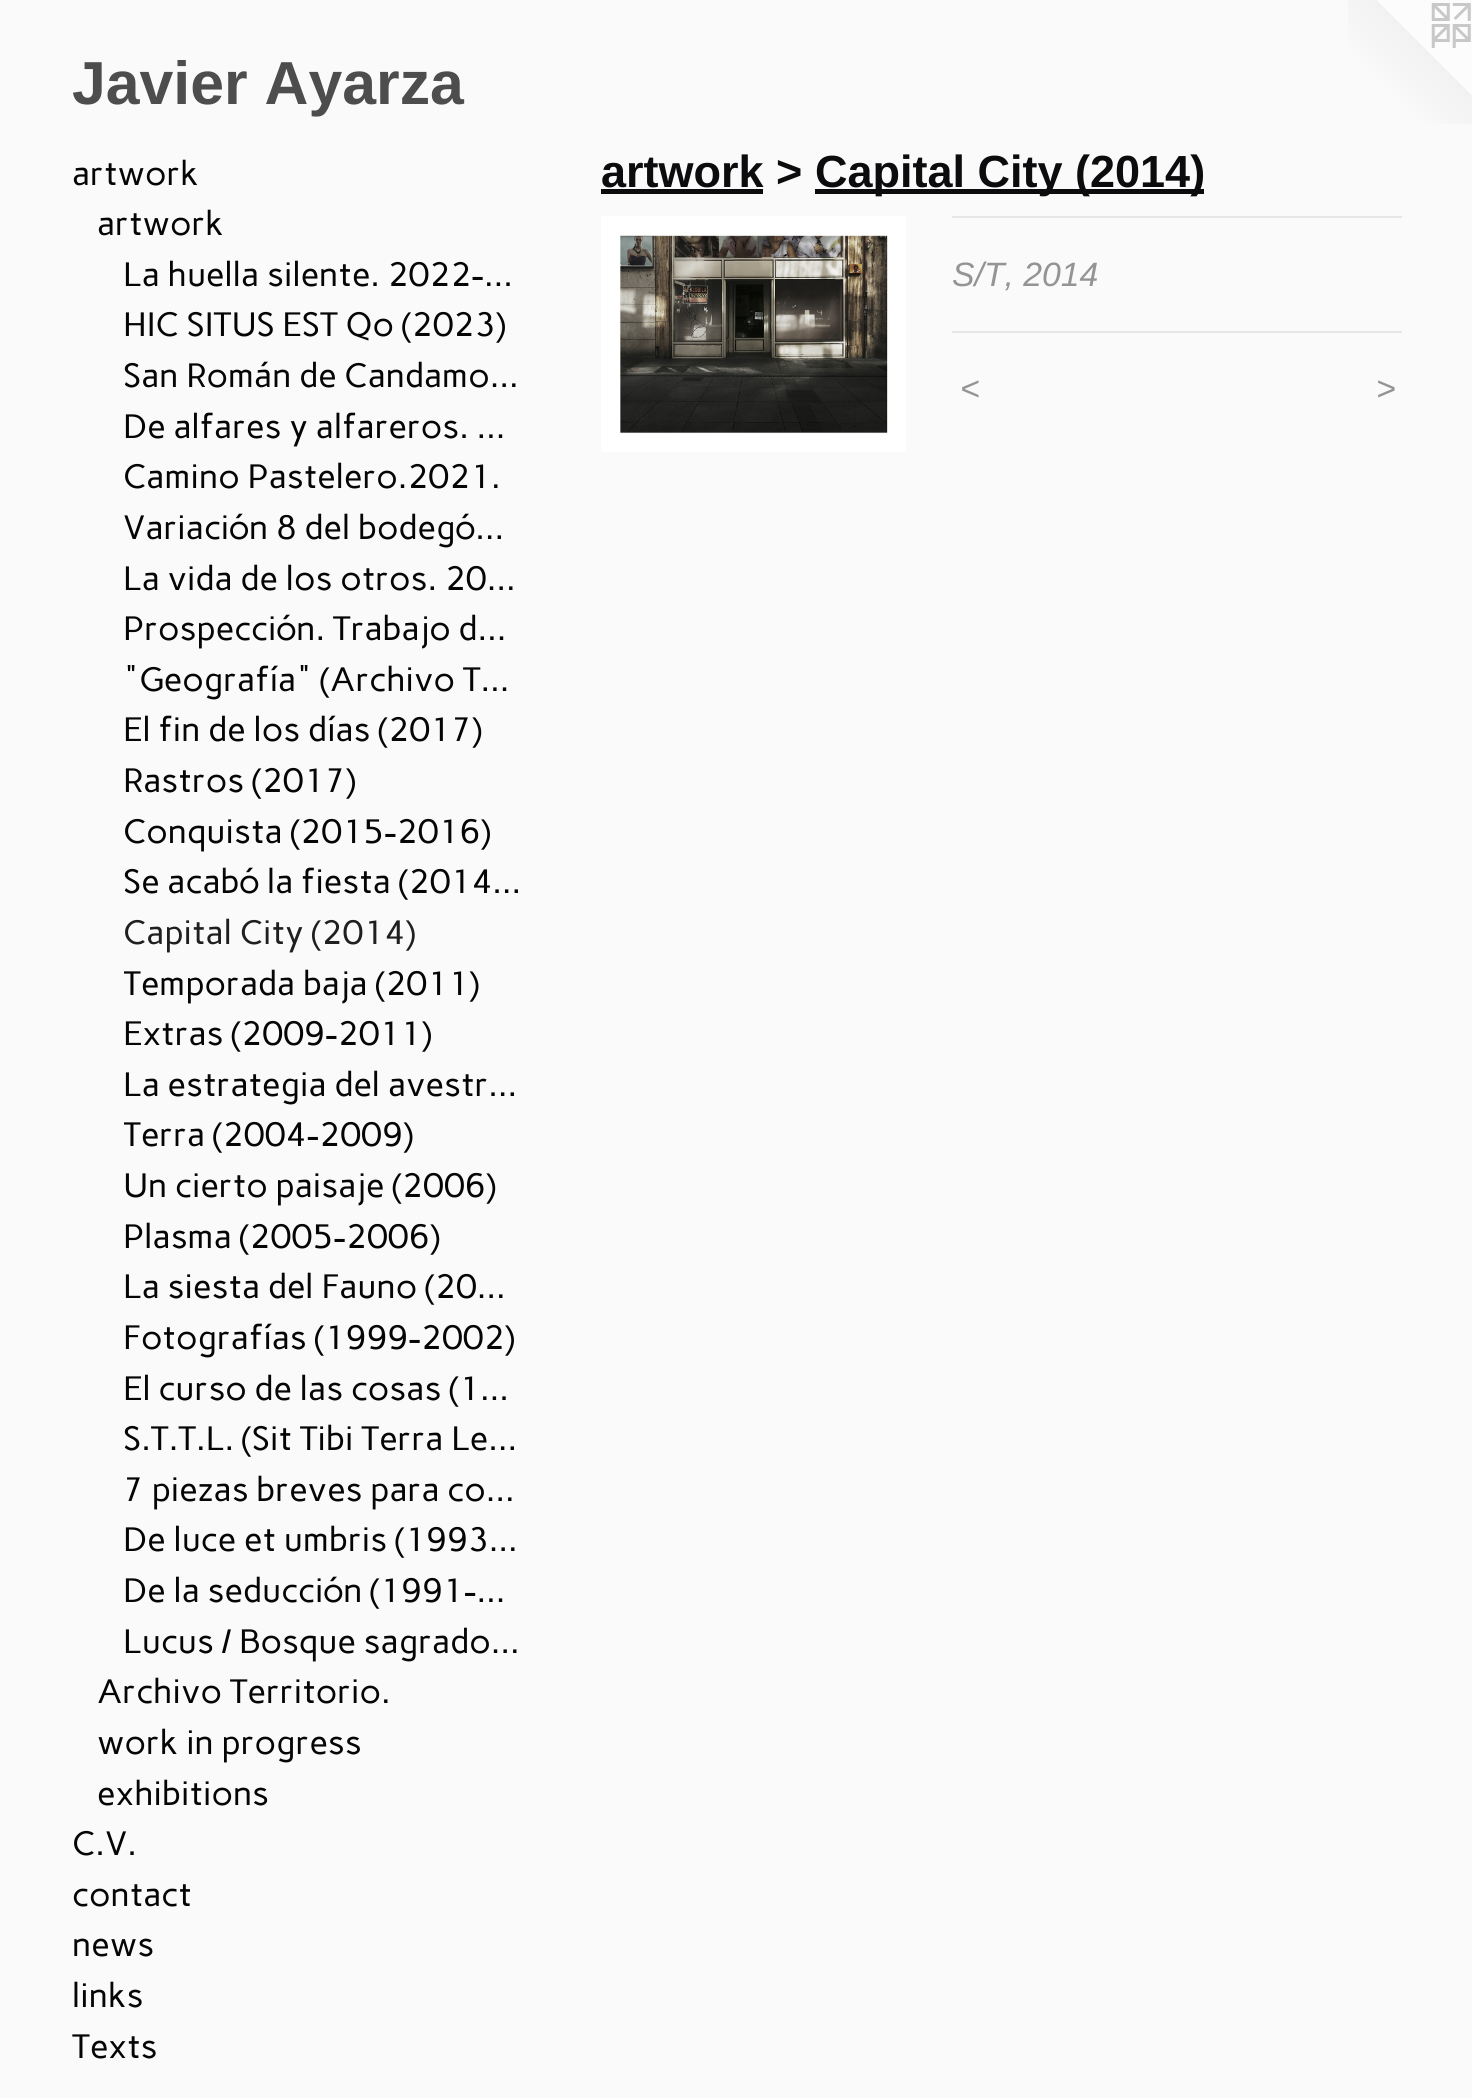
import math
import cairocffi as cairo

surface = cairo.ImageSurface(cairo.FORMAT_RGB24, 1472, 2098)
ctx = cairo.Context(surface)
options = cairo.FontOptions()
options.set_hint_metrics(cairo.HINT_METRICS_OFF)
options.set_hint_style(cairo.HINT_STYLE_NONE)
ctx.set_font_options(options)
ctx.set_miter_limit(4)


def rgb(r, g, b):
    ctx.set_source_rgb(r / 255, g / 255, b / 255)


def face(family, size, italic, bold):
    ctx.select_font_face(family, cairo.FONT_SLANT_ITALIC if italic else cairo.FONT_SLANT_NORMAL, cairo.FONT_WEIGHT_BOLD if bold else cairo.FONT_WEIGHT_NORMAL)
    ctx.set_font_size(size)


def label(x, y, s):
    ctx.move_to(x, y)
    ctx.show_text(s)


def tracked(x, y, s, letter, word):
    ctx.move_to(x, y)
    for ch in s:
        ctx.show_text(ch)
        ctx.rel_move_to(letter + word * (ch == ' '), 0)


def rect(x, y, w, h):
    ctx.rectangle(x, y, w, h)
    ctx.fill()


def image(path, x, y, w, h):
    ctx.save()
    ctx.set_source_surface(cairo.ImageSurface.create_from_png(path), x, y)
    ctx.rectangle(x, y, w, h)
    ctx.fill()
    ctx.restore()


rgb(250, 250, 250)
ctx.paint()
face('Liberation Sans', 60.75, 0, 1)
rgb(77, 77, 77)
label(72, 104, 'Javier Ayarza')
image('image0.png', 1348, 0, 124, 124)
face('Carme', 33.75, 0, 0)
rgb(5, 5, 5)
label(72, 185, 'artwork')
label(97, 235, 'artwork')
label(123, 286, 'La huella silente. 2022-…')
label(123, 336, 'HIC SITUS EST Qo (2023)')
label(123, 387, 'San Román de Candamo…')
label(123, 438, 'De alfares y alfareros. …')
label(123, 488, 'Camino Pastelero.2021.')
label(123, 539, 'Variación 8 del bodegó…')
label(123, 590, 'La vida de los otros. 20…')
label(123, 640, 'Prospección. Trabajo d…')
label(123, 691, '"Geografía" (Archivo T…')
label(123, 741, 'El fin de los días (2017)')
label(123, 792, 'Rastros (2017)')
label(123, 843, 'Conquista (2015-2016)')
label(123, 893, 'Se acabó la fiesta (2014…')
rgb(31, 31, 31)
label(123, 944, 'Capital City (2014)')
ctx.save()
ctx.rectangle(124, 959, 398, 51)
ctx.clip()
rgb(5, 5, 5)
label(123, 995, 'Temporada baja (2011)')
ctx.restore()
rgb(5, 5, 5)
label(123, 1045, 'Extras (2009-2011)')
label(123, 1096, 'La estrategia del avestr…')
ctx.save()
ctx.rectangle(124, 1112, 398, 49)
ctx.clip()
label(123, 1146, 'Terra (2004-2009)')
ctx.restore()
label(123, 1197, 'Un cierto paisaje (2006)')
label(123, 1248, 'Plasma (2005-2006)')
label(123, 1298, 'La siesta del Fauno (20…')
label(123, 1349, 'Fotografías (1999-2002)')
label(123, 1400, 'El curso de las cosas (1…')
label(123, 1450, 'S.T.T.L. (Sit Tibi Terra Le…')
label(123, 1501, '7 piezas breves para co…')
label(123, 1551, 'De luce et umbris (1993…')
label(123, 1602, 'De la seducción (1991-…')
label(123, 1653, 'Lucus / Bosque sagrado…')
label(97, 1703, 'Archivo Territorio.')
label(97, 1754, 'work in progress')
label(97, 1805, 'exhibitions')
label(72, 1855, 'C.V.')
label(72, 1906, 'contact')
label(72, 1956, 'news')
label(72, 2007, 'links')
label(72, 2058, 'Texts')
face('Arimo', 45, 0, 1)
rgb(12, 12, 14)
label(601, 187, 'artwork >')
rect(601, 189, 162, 5)
rect(815, 189, 389, 5)
label(815, 187, 'Capital City (2014)')
image('image1.png', 601, 216, 305, 236)
rgb(230, 230, 230)
rect(952, 216, 450, 2)
face('Liberation Sans', 33.75, 1, 0)
rgb(148, 148, 148)
label(952, 286, 'S/T, 2014')
rgb(230, 230, 230)
rect(952, 331, 450, 2)
rgb(148, 148, 148)
tracked(960, 400, '<', 2, 0)
tracked(1376, 400, '>', 2, 0)
surface.write_to_png('render.png')
